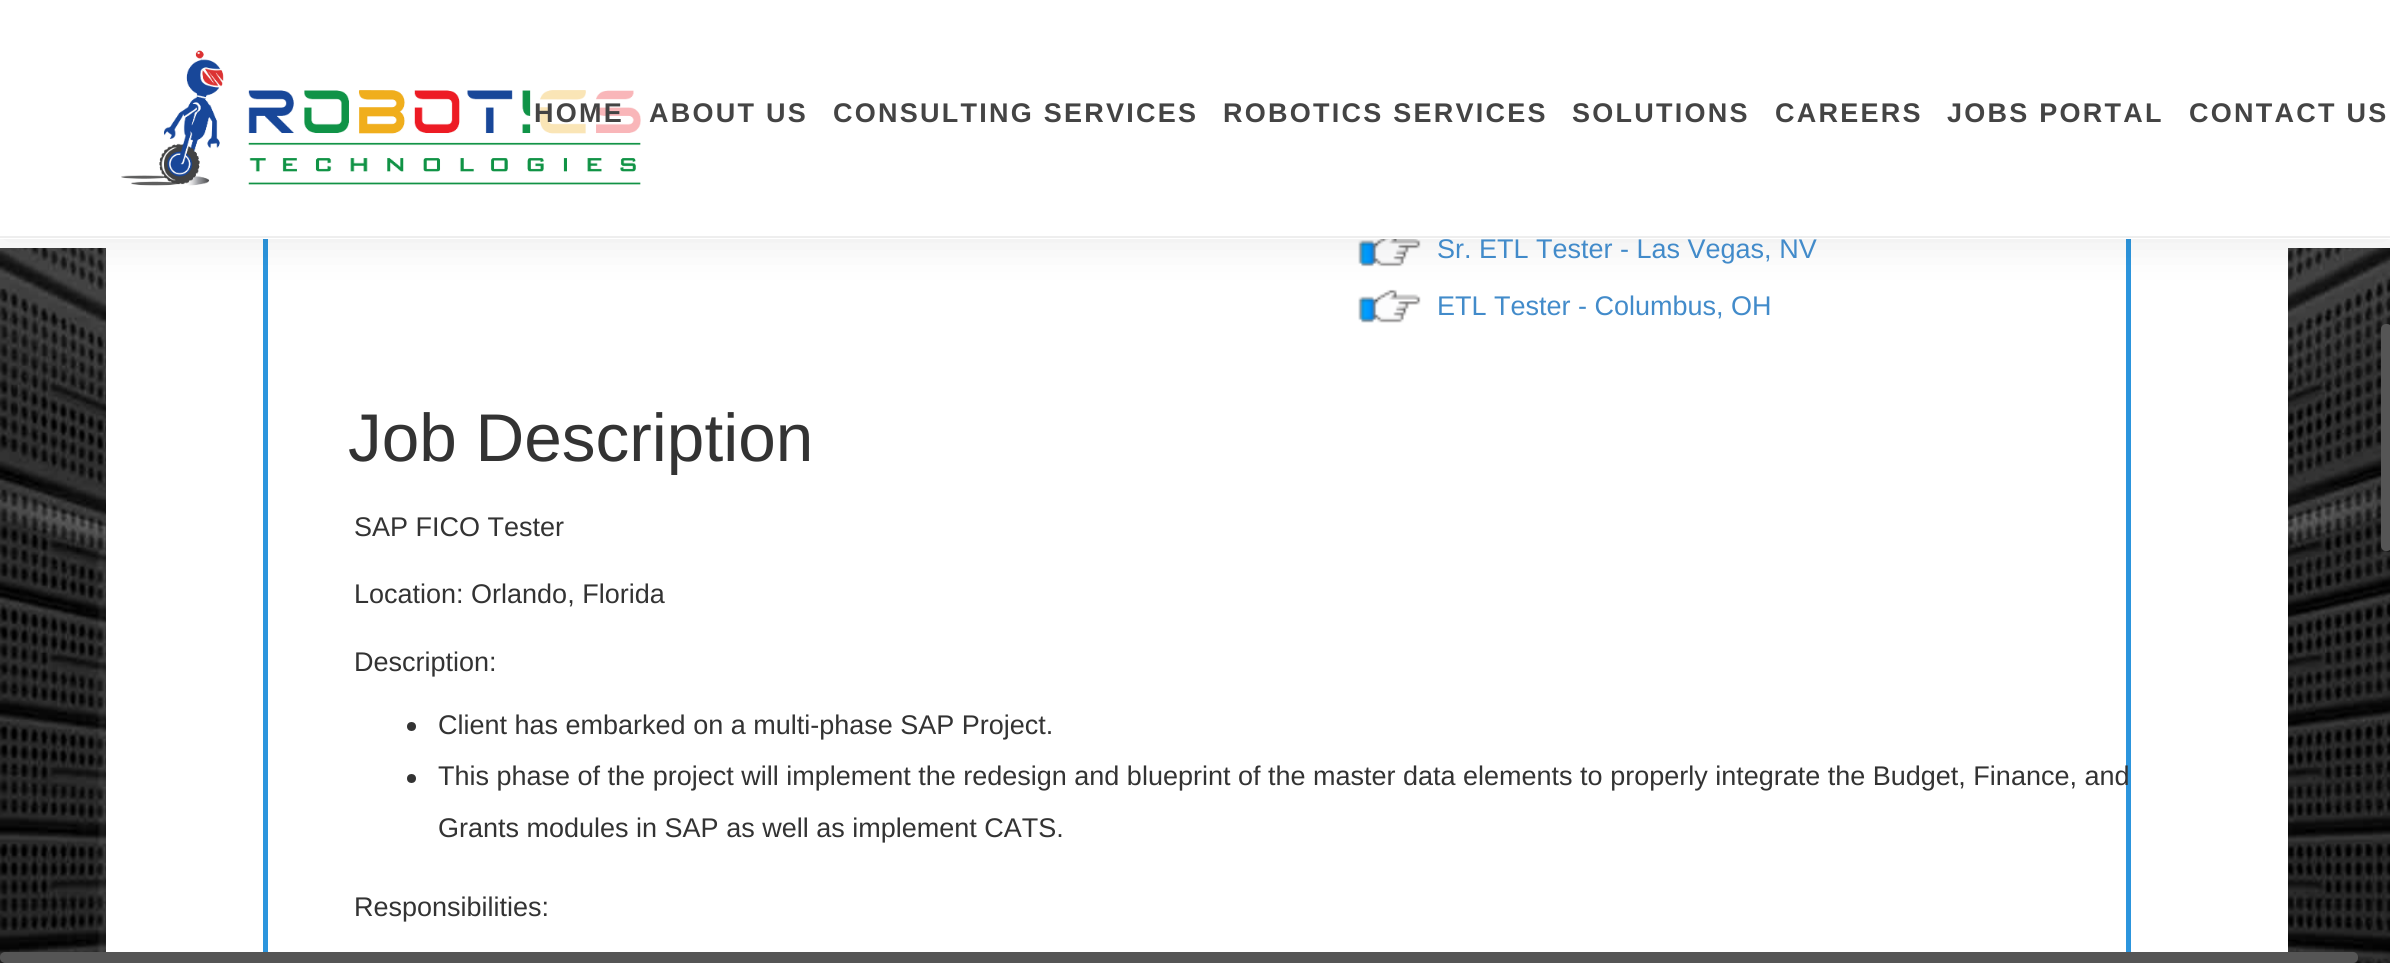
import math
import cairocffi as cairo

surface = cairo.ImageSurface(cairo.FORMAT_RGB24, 2390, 963)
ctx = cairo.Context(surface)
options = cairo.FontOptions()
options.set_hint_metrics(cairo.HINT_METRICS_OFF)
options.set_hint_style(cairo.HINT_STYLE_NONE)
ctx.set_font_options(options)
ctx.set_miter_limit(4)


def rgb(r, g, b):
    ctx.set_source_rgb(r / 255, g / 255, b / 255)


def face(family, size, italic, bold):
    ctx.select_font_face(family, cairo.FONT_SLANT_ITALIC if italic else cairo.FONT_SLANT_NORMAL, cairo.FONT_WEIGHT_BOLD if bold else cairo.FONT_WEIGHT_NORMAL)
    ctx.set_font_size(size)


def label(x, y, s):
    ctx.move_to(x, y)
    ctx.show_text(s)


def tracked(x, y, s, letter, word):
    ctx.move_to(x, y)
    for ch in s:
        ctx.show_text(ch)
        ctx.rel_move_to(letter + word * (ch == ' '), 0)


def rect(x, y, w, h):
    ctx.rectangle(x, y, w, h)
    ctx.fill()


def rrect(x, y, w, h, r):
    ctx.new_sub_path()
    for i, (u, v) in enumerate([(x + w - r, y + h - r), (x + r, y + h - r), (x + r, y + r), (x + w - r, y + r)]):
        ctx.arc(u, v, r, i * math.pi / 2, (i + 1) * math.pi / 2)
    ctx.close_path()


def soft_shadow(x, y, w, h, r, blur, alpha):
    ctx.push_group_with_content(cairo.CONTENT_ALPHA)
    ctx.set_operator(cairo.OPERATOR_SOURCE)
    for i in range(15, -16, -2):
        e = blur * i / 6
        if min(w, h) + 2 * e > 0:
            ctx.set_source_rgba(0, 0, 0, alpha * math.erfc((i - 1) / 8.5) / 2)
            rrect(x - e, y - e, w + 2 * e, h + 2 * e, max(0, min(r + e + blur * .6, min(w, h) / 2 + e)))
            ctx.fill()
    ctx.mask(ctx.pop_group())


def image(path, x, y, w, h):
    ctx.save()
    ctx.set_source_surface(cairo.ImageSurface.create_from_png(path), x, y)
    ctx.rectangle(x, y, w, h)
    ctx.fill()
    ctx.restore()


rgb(255, 255, 255)
ctx.paint()
image('image3.png', 0, 248, 2390, 715)
rgb(255, 255, 255)
rect(106, 248, 2182, 704)
ctx.rectangle(265.5, -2.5, 1863, 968)
rgb(44, 149, 221)
ctx.set_line_width(5)
ctx.stroke()
image('image1.png', 1358, 239, 63, 28)
image('image2.png', 1358, 289, 63, 34)
rgb(0, 0, 0)
soft_shadow(0, 0, 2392, 239, 0, 22.5, 0.1)
rgb(255, 255, 255)
rect(0, 0, 2390, 239)
rgb(238, 238, 238)
rect(0, 236, 2390, 2)
image('image0.png', 121, 50, 520, 136)
ctx.set_source_rgba(1, 1, 1, 0.6)
rect(540, 90, 101, 44)
ctx.set_source_rgba(1, 1, 1, 0.2)
rect(540, 90, 101, 44)
face('Liberation Sans', 27, 0, 1)
rgb(68, 68, 68)
tracked(534, 122, 'HOME', 2.25, 0)
tracked(649, 122, 'ABOUT US', 2.25, 0)
tracked(833, 122, 'CONSULTING SERVICES', 2.25, 0)
tracked(1223, 122, 'ROBOTICS SERVICES', 2.25, 0)
tracked(1572, 122, 'SOLUTIONS', 2.25, 0)
tracked(1775, 122, 'CAREERS', 2.25, 0)
tracked(1947, 122, 'JOBS PORTAL', 2.25, 0)
tracked(2189, 122, 'CONTACT US', 2.25, 0)
face('Liberation Sans', 27, 0, 0)
rgb(66, 139, 202)
label(1437, 258, 'Sr. ETL Tester - Las Vegas, NV')
label(1437, 315, 'ETL Tester - Columbus, OH')
face('Liberation Sans', 67.5, 0, 0)
rgb(51, 51, 51)
label(348, 461, 'Job Description')
face('Liberation Sans', 27, 0, 0)
label(354, 536, 'SAP FICO Tester')
label(354, 603, 'Location: Orlando, Florida')
label(354, 671, 'Description:')
ctx.new_path()
ctx.arc(411.5, 726.5, 4.5, 0, 2 * math.pi)
ctx.fill()
label(438, 734, 'Client has embarked on a multi-phase SAP Project.')
ctx.new_path()
ctx.arc(411.5, 778.5, 4.5, 0, 2 * math.pi)
ctx.fill()
label(438, 785, 'This phase of the project will implement the redesign and blueprint of the master data elements to properly integrate the Budget, Finance, and')
label(438, 837, 'Grants modules in SAP as well as implement CATS.')
label(354, 916, 'Responsibilities:')
rgb(85, 85, 85)
rrect(2381, 324, 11, 227, 5)
ctx.fill()
rrect(0, 952, 2358, 11, 5)
ctx.fill()
surface.write_to_png('render.png')
